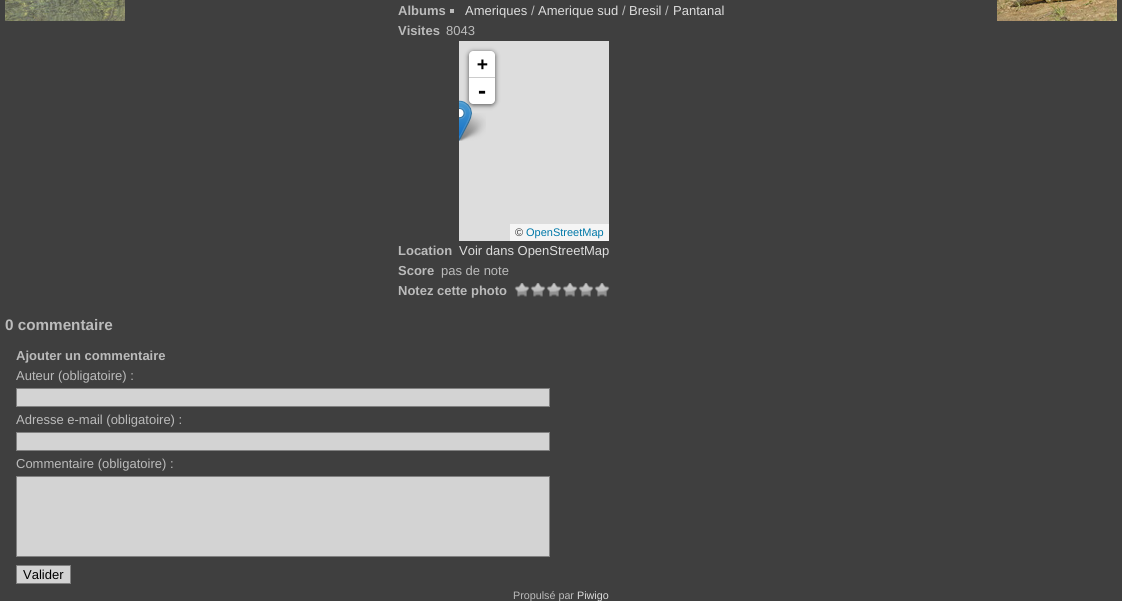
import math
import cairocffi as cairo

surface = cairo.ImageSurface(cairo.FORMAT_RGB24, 1122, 601)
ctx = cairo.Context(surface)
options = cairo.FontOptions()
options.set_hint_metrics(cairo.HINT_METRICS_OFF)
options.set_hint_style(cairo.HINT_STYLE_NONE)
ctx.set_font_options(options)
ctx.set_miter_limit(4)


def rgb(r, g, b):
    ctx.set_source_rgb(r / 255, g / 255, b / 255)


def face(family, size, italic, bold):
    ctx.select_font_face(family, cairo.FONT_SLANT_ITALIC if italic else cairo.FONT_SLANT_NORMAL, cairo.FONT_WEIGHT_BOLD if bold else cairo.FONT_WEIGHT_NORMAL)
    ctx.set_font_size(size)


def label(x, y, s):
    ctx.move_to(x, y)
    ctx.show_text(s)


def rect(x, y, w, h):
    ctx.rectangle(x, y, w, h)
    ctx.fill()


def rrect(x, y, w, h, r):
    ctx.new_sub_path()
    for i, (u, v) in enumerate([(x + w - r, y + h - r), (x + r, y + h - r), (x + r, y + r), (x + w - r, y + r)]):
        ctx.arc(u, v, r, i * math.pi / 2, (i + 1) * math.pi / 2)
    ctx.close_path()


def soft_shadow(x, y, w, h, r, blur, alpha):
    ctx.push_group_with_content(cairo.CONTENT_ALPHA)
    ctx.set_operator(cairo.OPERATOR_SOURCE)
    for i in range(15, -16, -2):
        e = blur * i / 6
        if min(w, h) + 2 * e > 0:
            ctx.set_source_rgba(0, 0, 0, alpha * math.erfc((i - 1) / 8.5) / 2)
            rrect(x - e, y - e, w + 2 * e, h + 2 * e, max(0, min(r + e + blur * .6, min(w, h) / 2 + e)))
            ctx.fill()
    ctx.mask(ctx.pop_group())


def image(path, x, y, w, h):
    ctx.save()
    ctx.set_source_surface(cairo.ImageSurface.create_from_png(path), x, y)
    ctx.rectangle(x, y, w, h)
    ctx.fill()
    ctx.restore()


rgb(63, 63, 63)
ctx.paint()
image('image0.png', 5, 0, 120, 21)
image('image1.png', 997, 0, 120, 21)
face('Liberation Sans', 13, 0, 1)
rgb(187, 187, 187)
label(398, 15, 'Albums')
rect(450, 9, 4, 4)
face('Liberation Sans', 13, 0, 0)
rgb(221, 221, 221)
label(465, 15, 'Ameriques')
rgb(187, 187, 187)
label(531, 15, '/')
rgb(221, 221, 221)
label(538, 15, 'Amerique sud')
rgb(187, 187, 187)
label(622, 15, '/')
rgb(221, 221, 221)
label(629, 15, 'Bresil')
rgb(187, 187, 187)
label(665, 15, '/')
rgb(221, 221, 221)
label(673, 15, 'Pantanal')
face('Liberation Sans', 13, 0, 1)
rgb(187, 187, 187)
label(398, 35, 'Visites')
face('Liberation Sans', 13, 0, 0)
label(446, 35, '8043')
face('Liberation Sans', 13, 0, 1)
label(398, 255, 'Location')
rgb(221, 221, 221)
rect(459, 41, 150, 200)
image('image3.png', 459, 113, 27, 28)
image('image2.png', 459, 100, 13, 41)
rgb(0, 0, 0)
soft_shadow(469, 52, 26, 53, 4, 2.5, 0.65)
rgb(255, 255, 255)
ctx.new_path()
ctx.move_to(473, 51)
ctx.line_to(491, 51)
ctx.curve_to(493, 51, 495, 53, 495, 55)
ctx.line_to(495, 78)
ctx.line_to(469, 78)
ctx.line_to(469, 55)
ctx.curve_to(469, 53, 471, 51, 473, 51)
ctx.close_path()
ctx.fill()
rgb(204, 204, 204)
rect(469, 77, 26, 1)
face('DejaVu Sans Mono', 18, 0, 1)
rgb(0, 0, 0)
label(477, 70, '+')
rgb(255, 255, 255)
ctx.new_path()
ctx.move_to(469, 78)
ctx.line_to(495, 78)
ctx.line_to(495, 100)
ctx.curve_to(495, 102, 493, 104, 491, 104)
ctx.line_to(473, 104)
ctx.curve_to(471, 104, 469, 102, 469, 100)
ctx.close_path()
ctx.fill()
face('DejaVu Sans Mono', 20, 0, 1)
rgb(0, 0, 0)
label(476, 98, '-')
rgb(245, 245, 245)
rect(510, 224, 99, 17)
face('Liberation Sans', 11, 0, 0)
rgb(51, 51, 51)
label(515, 236, '©')
rgb(0, 120, 168)
label(526, 236, 'OpenStreetMap')
face('Liberation Sans', 13, 0, 0)
rgb(221, 221, 221)
label(459, 255, 'Voir dans OpenStreetMap')
face('Liberation Sans', 13, 0, 1)
rgb(187, 187, 187)
label(398, 275, 'Score')
face('Liberation Sans', 13, 0, 0)
label(441, 275, 'pas de note')
face('Liberation Sans', 13, 0, 1)
label(398, 295, 'Notez cette photo')
image('image4.png', 514, 283, 16, 14)
image('image4.png', 530, 283, 16, 14)
image('image4.png', 546, 283, 16, 14)
image('image4.png', 562, 283, 16, 14)
image('image4.png', 578, 283, 16, 14)
image('image4.png', 594, 283, 16, 14)
face('Liberation Sans', 15.25, 0, 1)
label(5, 330, '0 commentaire')
face('Liberation Sans', 13, 0, 1)
label(16, 360, 'Ajouter un commentaire')
face('Liberation Sans', 13, 0, 0)
label(16, 380, 'Auteur (obligatoire) :')
rgb(211, 211, 211)
ctx.rectangle(16.5, 388.5, 533, 18)
ctx.fill_preserve()
rgb(128, 128, 128)
ctx.set_line_width(1)
ctx.stroke()
rgb(187, 187, 187)
label(16, 424, 'Adresse e-mail (obligatoire) :')
rgb(211, 211, 211)
ctx.rectangle(16.5, 432.5, 533, 18)
ctx.fill_preserve()
rgb(128, 128, 128)
ctx.stroke()
rgb(187, 187, 187)
label(16, 468, 'Commentaire (obligatoire) :')
rgb(211, 211, 211)
ctx.rectangle(16.5, 476.5, 533, 80)
ctx.fill_preserve()
rgb(128, 128, 128)
ctx.stroke()
rgb(211, 211, 211)
ctx.rectangle(16.5, 565.5, 54, 18)
ctx.fill_preserve()
rgb(128, 128, 128)
ctx.stroke()
rgb(0, 0, 0)
label(23, 579, 'Valider')
face('Liberation Sans', 10.75, 0, 0)
rgb(187, 187, 187)
label(513, 599, 'Propulsé par')
rgb(221, 221, 221)
label(577, 599, 'Piwigo')
surface.write_to_png('render.png')
